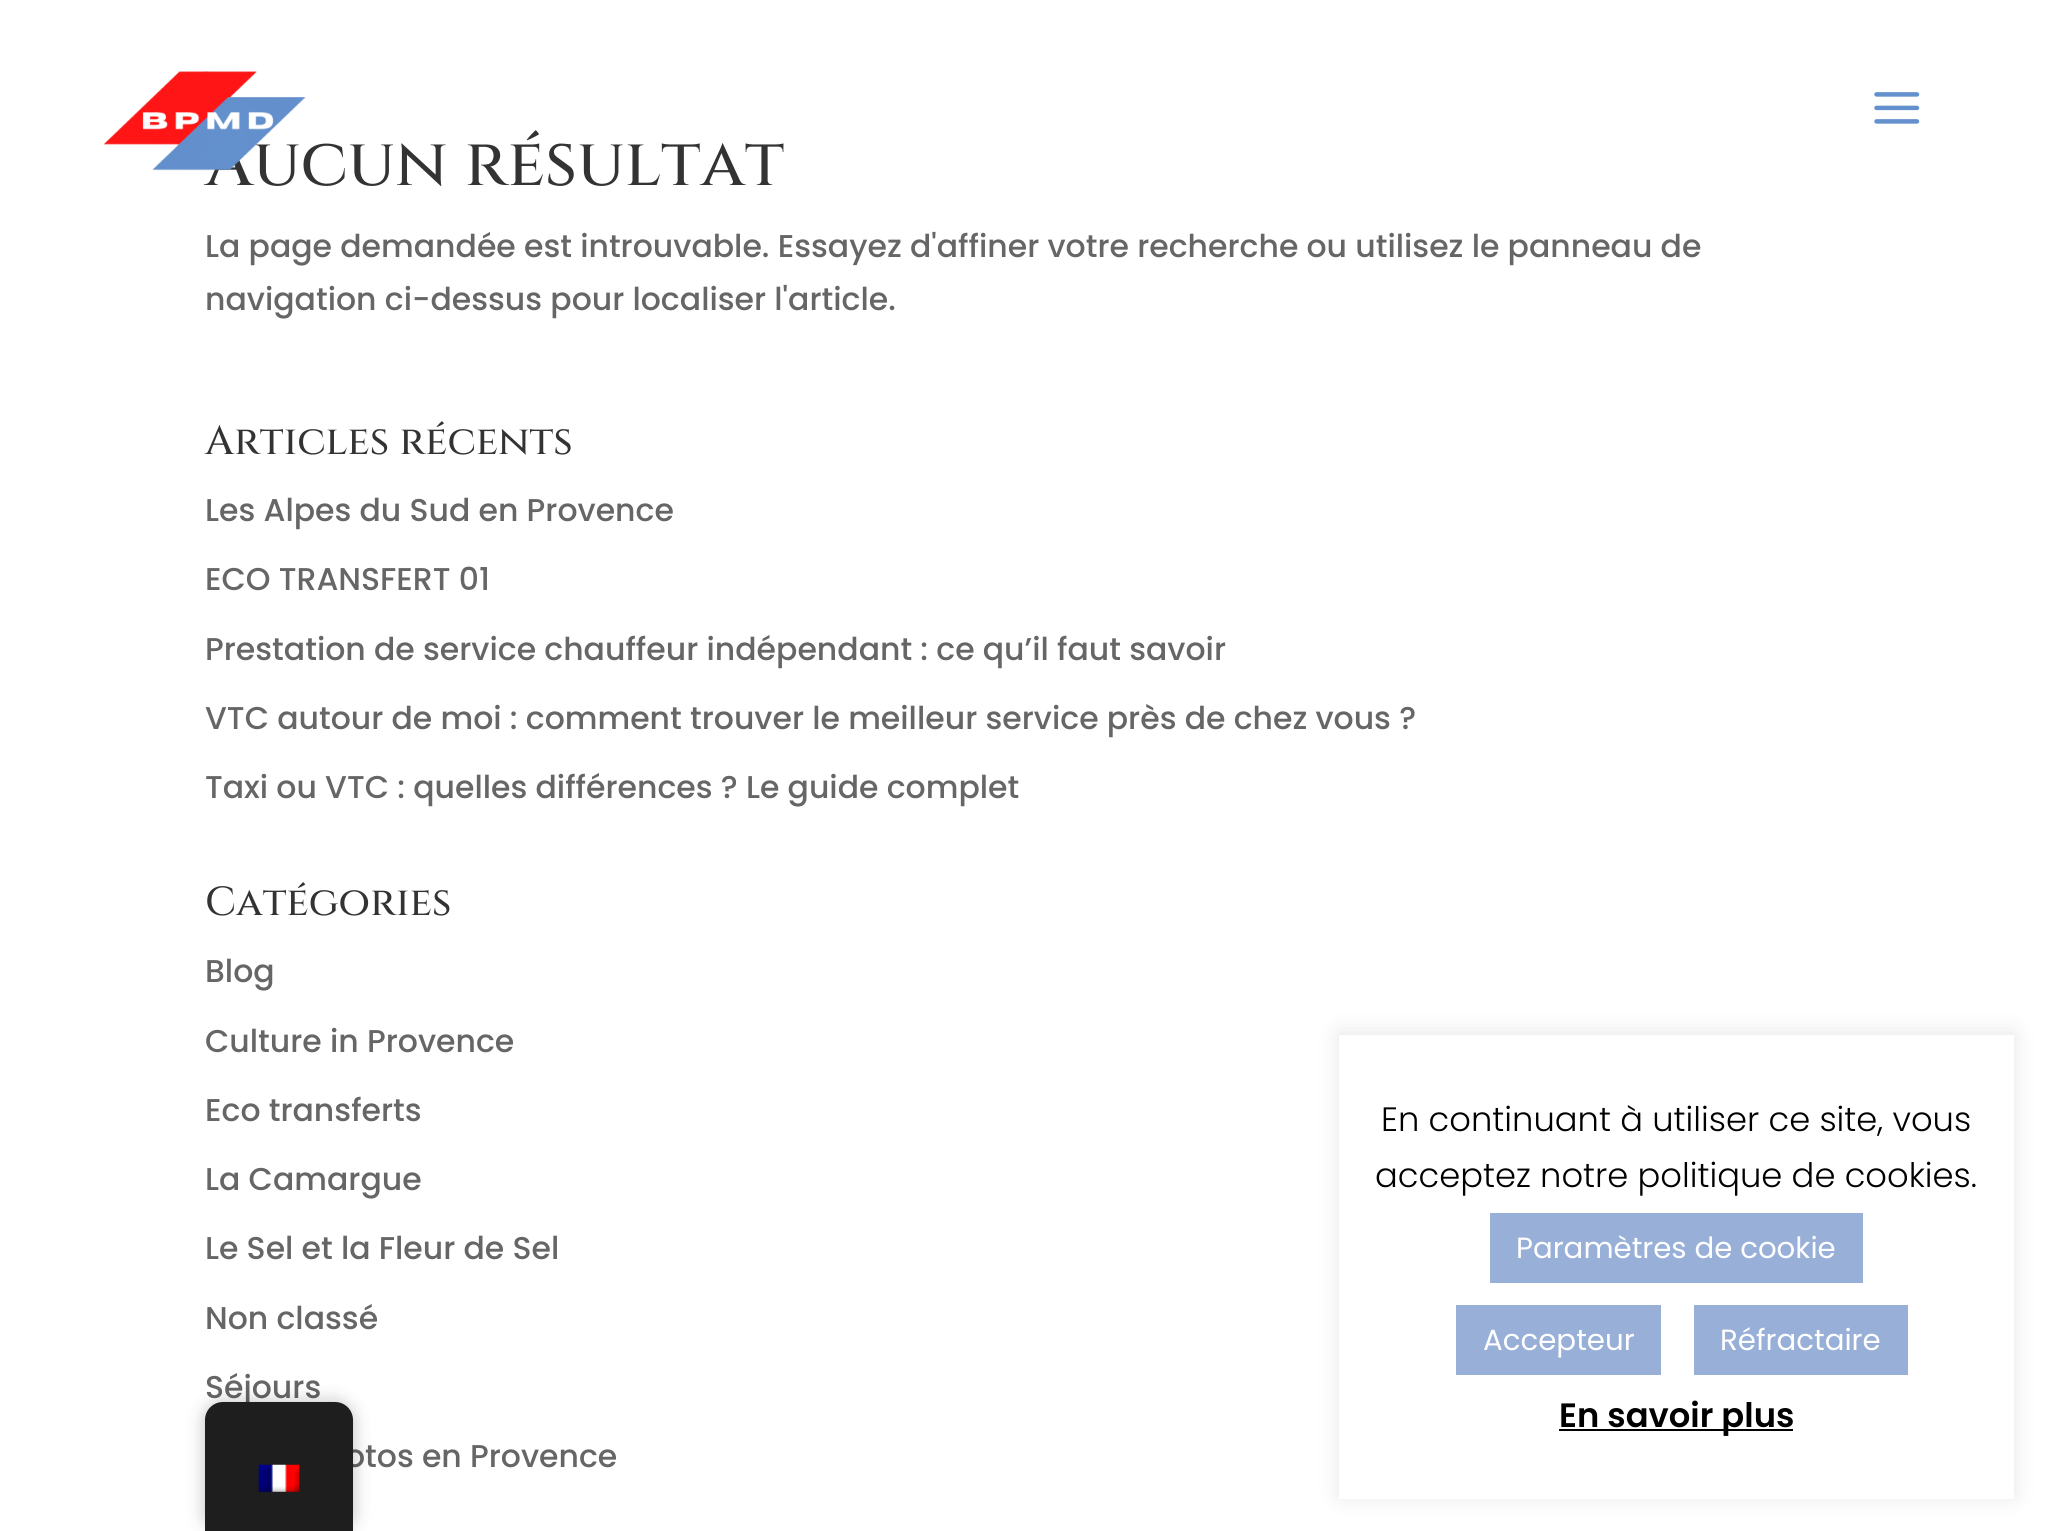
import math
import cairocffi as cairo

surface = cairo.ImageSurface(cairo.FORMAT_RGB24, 2047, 1531)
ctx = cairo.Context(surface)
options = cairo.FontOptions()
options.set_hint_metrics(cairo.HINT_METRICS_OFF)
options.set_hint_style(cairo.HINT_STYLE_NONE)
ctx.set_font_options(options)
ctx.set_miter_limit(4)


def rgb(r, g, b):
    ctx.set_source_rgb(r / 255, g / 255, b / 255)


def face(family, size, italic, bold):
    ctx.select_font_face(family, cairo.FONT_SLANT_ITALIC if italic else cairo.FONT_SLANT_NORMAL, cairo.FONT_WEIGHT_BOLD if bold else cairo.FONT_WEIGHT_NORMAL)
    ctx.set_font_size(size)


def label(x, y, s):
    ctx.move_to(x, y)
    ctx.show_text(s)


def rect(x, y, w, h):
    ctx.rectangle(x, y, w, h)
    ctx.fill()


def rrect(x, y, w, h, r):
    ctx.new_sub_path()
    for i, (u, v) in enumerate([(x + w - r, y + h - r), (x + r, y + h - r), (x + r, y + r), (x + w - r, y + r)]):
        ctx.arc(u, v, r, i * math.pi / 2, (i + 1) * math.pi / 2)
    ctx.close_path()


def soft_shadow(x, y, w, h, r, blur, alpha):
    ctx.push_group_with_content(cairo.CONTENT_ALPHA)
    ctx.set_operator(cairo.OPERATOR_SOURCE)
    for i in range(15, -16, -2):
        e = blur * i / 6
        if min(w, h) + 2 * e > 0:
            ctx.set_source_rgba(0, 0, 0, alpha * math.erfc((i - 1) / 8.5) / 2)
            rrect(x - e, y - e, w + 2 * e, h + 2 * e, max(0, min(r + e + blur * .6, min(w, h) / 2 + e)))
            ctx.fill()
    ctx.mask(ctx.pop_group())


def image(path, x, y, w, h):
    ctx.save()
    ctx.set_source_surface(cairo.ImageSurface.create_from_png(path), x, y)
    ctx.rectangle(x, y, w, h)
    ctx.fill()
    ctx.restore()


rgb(255, 255, 255)
ctx.paint()
face('Cinzel Medium', 67.5, 0, 0)
rgb(51, 51, 51)
label(205, 185, 'Aucun résultat')
image('image0.png', 103, 71, 203, 100)
image('image1.png', 1874, 92, 46, 32)
face('Poppins Medium', 31.5, 0, 0)
rgb(102, 102, 102)
label(205, 257, 'La page demandée est introuvable. Essayez d\'affiner votre recherche ou utilisez le panneau de')
label(205, 310, 'navigation ci-dessus pour localiser l\'article.')
face('Cinzel Medium', 40.5, 0, 0)
rgb(51, 51, 51)
label(205, 454, 'Articles récents')
face('Poppins Medium', 31.5, 0, 0)
rgb(102, 102, 102)
label(205, 521, 'Les Alpes du Sud en Provence')
label(205, 590, 'ECO TRANSFERT 01')
label(205, 660, 'Prestation de service chauffeur indépendant : ce qu’il faut savoir')
label(205, 729, 'VTC autour de moi : comment trouver le meilleur service près de chez vous ?')
label(205, 798, 'Taxi ou VTC : quelles différences ? Le guide complet')
face('Cinzel Medium', 40.5, 0, 0)
rgb(51, 51, 51)
label(205, 915, 'Catégories')
face('Poppins Medium', 31.5, 0, 0)
rgb(102, 102, 102)
label(205, 982, 'Blog')
label(205, 1052, 'Culture in Provence')
label(205, 1121, 'Eco transferts')
label(205, 1190, 'La Camargue')
label(205, 1259, 'Le Sel et la Fleur de Sel')
label(205, 1329, 'Non classé')
label(205, 1398, 'Séjours')
label(345, 1467, 'otos en Provence')
rgb(172, 171, 171)
soft_shadow(1339, 1033, 675, 463, 0, 11, 0.3)
rgb(255, 255, 255)
rect(1339, 1035, 675, 464)
face('Poppins Light', 33.75, 0, 0)
rgb(0, 0, 0)
label(1381, 1131, 'En continuant à utiliser ce site, vous')
label(1375, 1187, 'acceptez notre politique de cookies.')
rgb(152, 175, 216)
rect(1490, 1213, 373, 70)
face('Poppins', 29.25, 0, 0)
rgb(255, 255, 255)
label(1516, 1258, 'Paramètres de cookie')
rgb(152, 175, 216)
rect(1456, 1305, 205, 70)
rgb(255, 255, 255)
label(1483, 1350, 'Accepteur')
rgb(152, 175, 216)
rect(1694, 1305, 214, 70)
rgb(255, 255, 255)
label(1720, 1350, 'Réfractaire')
rgb(0, 0, 0)
rect(1559, 1429, 234, 2)
face('Poppins SemiBold', 33.75, 0, 0)
label(1559, 1427, 'En savoir plus')
rgb(0, 0, 0)
soft_shadow(205, 1402, 148, 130, 18, 9, 0.25)
rgb(30, 30, 30)
ctx.new_path()
ctx.move_to(223, 1402)
ctx.line_to(335, 1402)
ctx.curve_to(345, 1402, 353, 1410, 353, 1420)
ctx.line_to(353, 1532)
ctx.line_to(205, 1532)
ctx.line_to(205, 1420)
ctx.curve_to(205, 1410, 213, 1402, 223, 1402)
ctx.close_path()
ctx.fill()
image('image2.png', 258, 1464, 42, 28)
surface.write_to_png('render.png')
